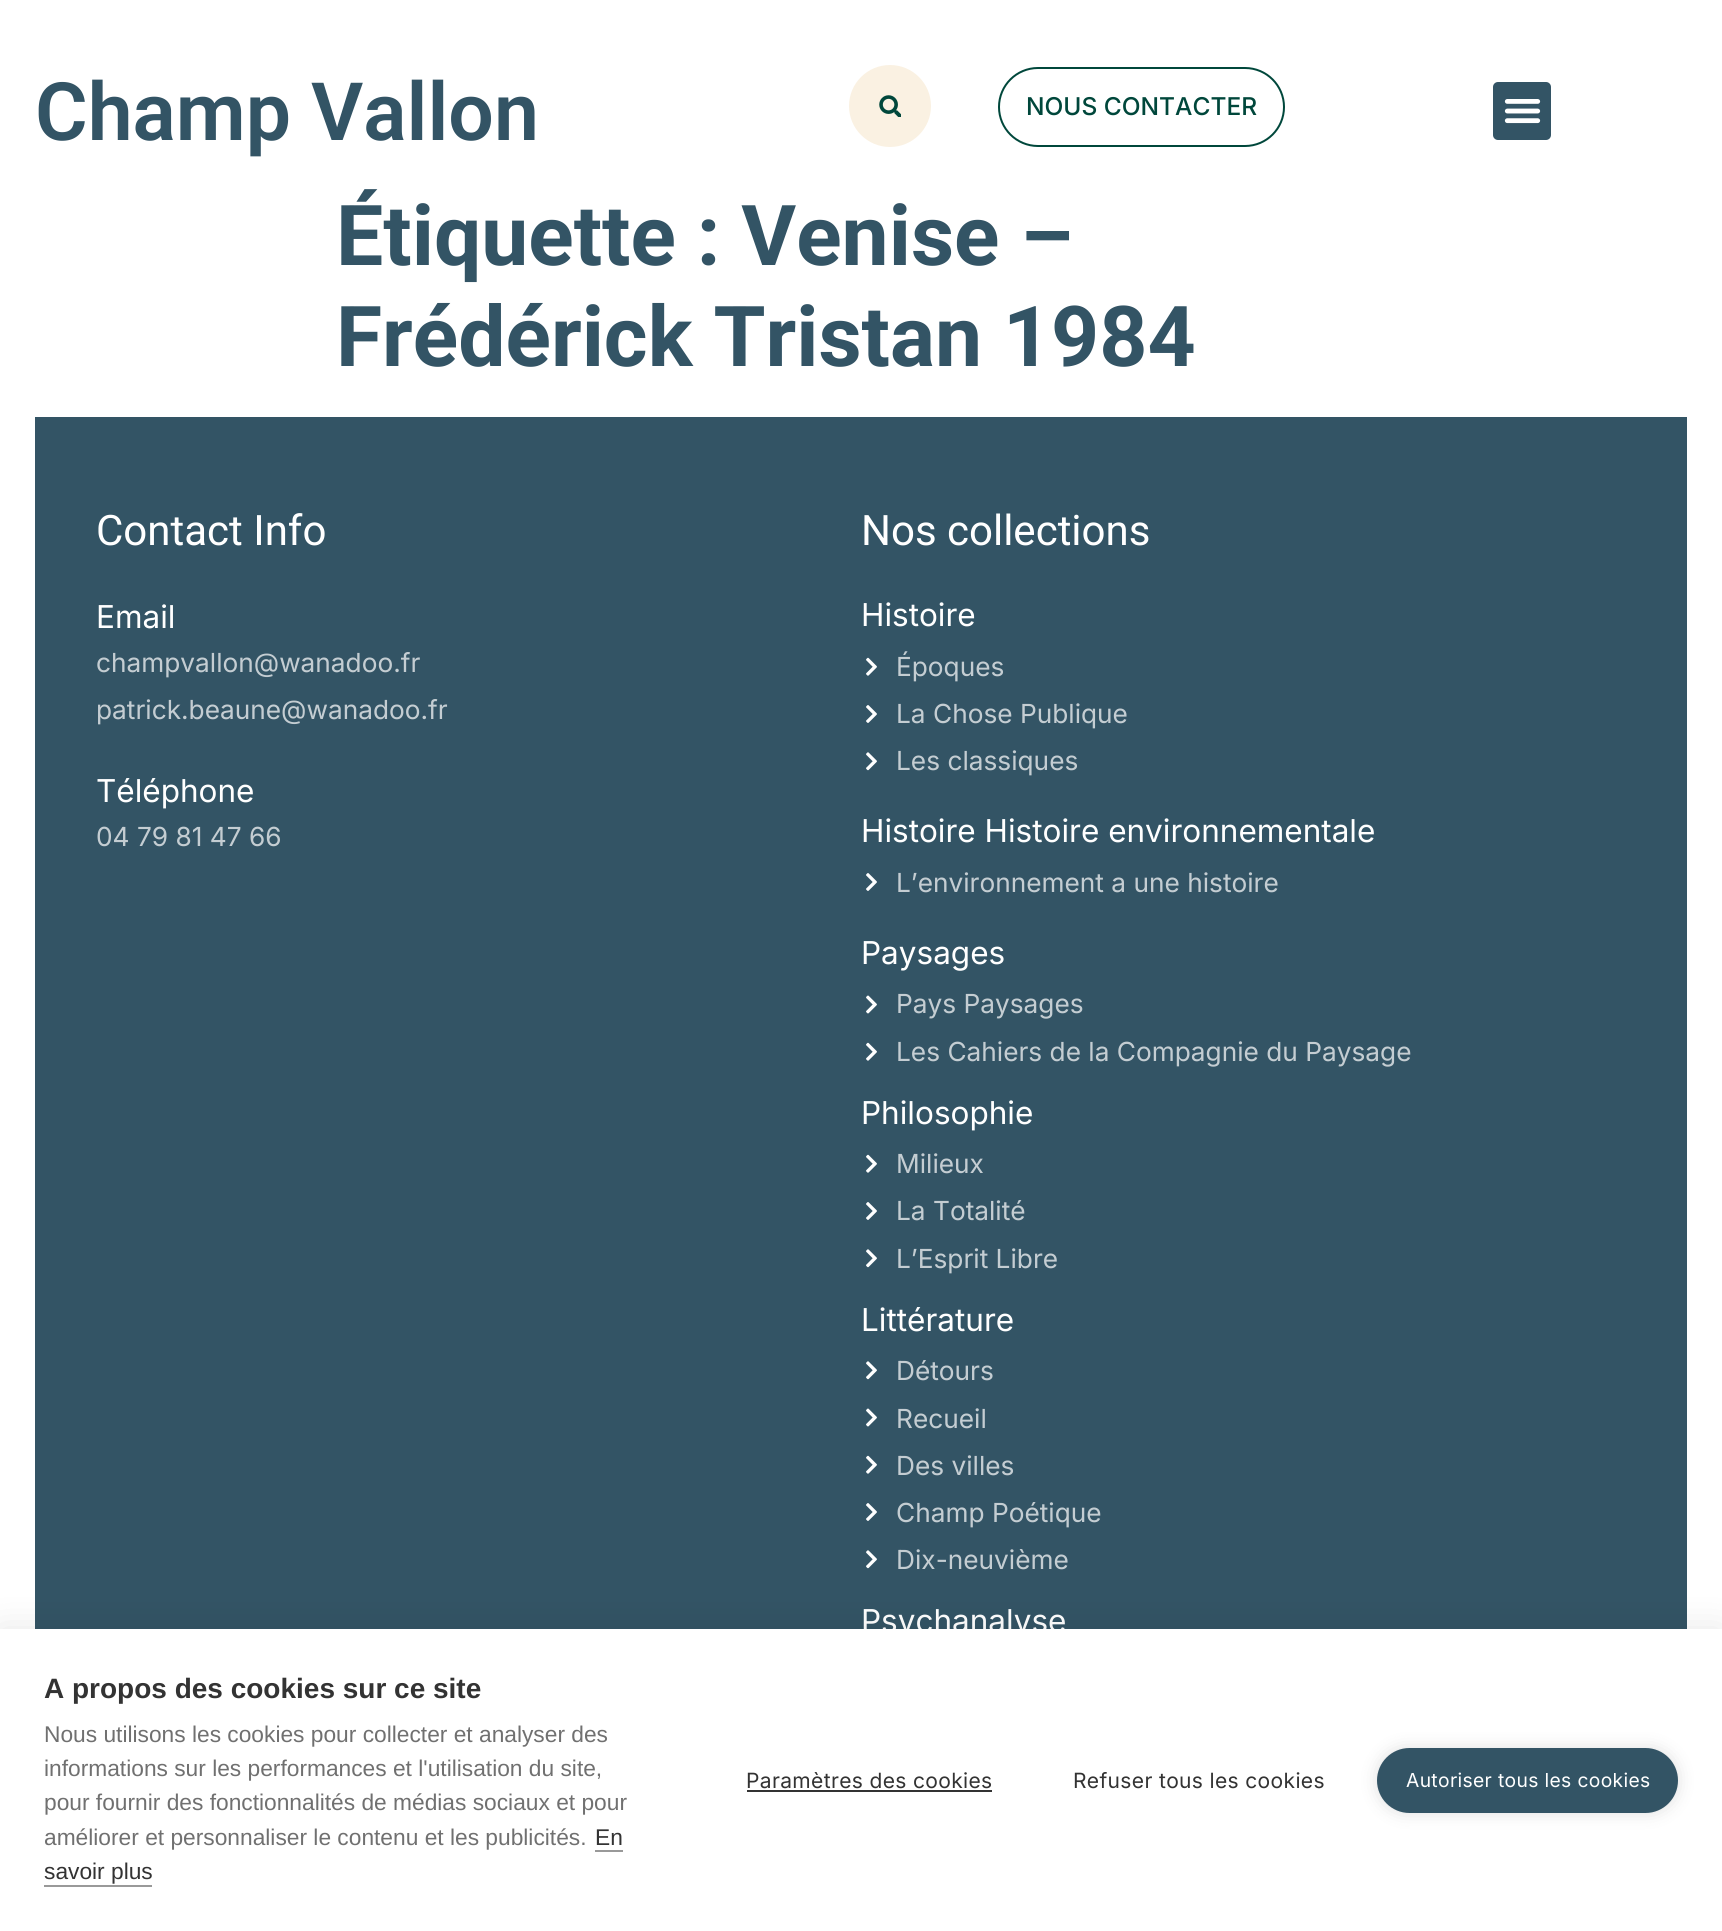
import math
import cairocffi as cairo

surface = cairo.ImageSurface(cairo.FORMAT_RGB24, 1722, 1931)
ctx = cairo.Context(surface)
options = cairo.FontOptions()
options.set_hint_metrics(cairo.HINT_METRICS_OFF)
options.set_hint_style(cairo.HINT_STYLE_NONE)
ctx.set_font_options(options)
ctx.set_miter_limit(4)


def rgb(r, g, b):
    ctx.set_source_rgb(r / 255, g / 255, b / 255)


def face(family, size, italic, bold):
    ctx.select_font_face(family, cairo.FONT_SLANT_ITALIC if italic else cairo.FONT_SLANT_NORMAL, cairo.FONT_WEIGHT_BOLD if bold else cairo.FONT_WEIGHT_NORMAL)
    ctx.set_font_size(size)


def label(x, y, s):
    ctx.move_to(x, y)
    ctx.show_text(s)


def tracked(x, y, s, letter, word):
    ctx.move_to(x, y)
    for ch in s:
        ctx.show_text(ch)
        ctx.rel_move_to(letter + word * (ch == ' '), 0)


def rect(x, y, w, h):
    ctx.rectangle(x, y, w, h)
    ctx.fill()


def rrect(x, y, w, h, r):
    ctx.new_sub_path()
    for i, (u, v) in enumerate([(x + w - r, y + h - r), (x + r, y + h - r), (x + r, y + r), (x + w - r, y + r)]):
        ctx.arc(u, v, r, i * math.pi / 2, (i + 1) * math.pi / 2)
    ctx.close_path()


def soft_shadow(x, y, w, h, r, blur, alpha):
    ctx.push_group_with_content(cairo.CONTENT_ALPHA)
    ctx.set_operator(cairo.OPERATOR_SOURCE)
    for i in range(15, -16, -2):
        e = blur * i / 6
        if min(w, h) + 2 * e > 0:
            ctx.set_source_rgba(0, 0, 0, alpha * math.erfc((i - 1) / 8.5) / 2)
            rrect(x - e, y - e, w + 2 * e, h + 2 * e, max(0, min(r + e + blur * .6, min(w, h) / 2 + e)))
            ctx.fill()
    ctx.mask(ctx.pop_group())


def image(path, x, y, w, h):
    ctx.save()
    ctx.set_source_surface(cairo.ImageSurface.create_from_png(path), x, y)
    ctx.rectangle(x, y, w, h)
    ctx.fill()
    ctx.restore()


rgb(255, 255, 255)
ctx.paint()
face('Roboto SemiBold', 80.5, 0, 0)
rgb(51, 84, 101)
label(35, 140, 'Champ Vallon')
rgb(250, 241, 226)
ctx.new_path()
ctx.arc(890, 106, 41, 0, 2 * math.pi)
ctx.fill()
image('image0.png', 879, 95, 22, 22)
rrect(999, 68, 285, 78, 39)
rgb(0, 71, 59)
ctx.stroke()
face('Inter Medium', 24.5, 0, 0)
label(1026, 115, 'NOUS CONTACTER')
rgb(51, 84, 101)
rrect(1493, 82, 58, 58, 5)
ctx.fill()
image('image1.png', 1504, 99, 37, 25)
face('Roboto', 84, 0, 1)
label(336, 265, 'Étiquette : Venise –')
label(336, 366, 'Frédérick Tristan 1984')
rect(35, 417, 1652, 1212)
face('Roboto', 42, 0, 0)
rgb(255, 255, 255)
label(96, 545, 'Contact Info')
face('Inter', 31.5, 0, 0)
label(96, 628, 'Email')
face('Inter', 26.25, 0, 0)
rgb(196, 205, 210)
label(96, 672, 'champvallon@wanadoo.fr')
label(96, 719, 'patrick.beaune@wanadoo.fr')
face('Inter', 31.5, 0, 0)
rgb(255, 255, 255)
label(96, 802, 'Téléphone')
face('Inter', 26.25, 0, 0)
rgb(196, 205, 210)
label(96, 846, '04 79 81 47 66')
face('Roboto', 42, 0, 0)
rgb(255, 255, 255)
label(861, 545, 'Nos collections')
face('Inter', 31.5, 0, 0)
label(861, 626, 'Histoire')
image('image2.png', 866, 657, 11, 19)
face('Inter', 26.25, 0, 0)
rgb(196, 205, 210)
label(896, 676, 'Époques')
image('image3.png', 866, 705, 11, 18)
label(896, 723, 'La Chose Publique')
image('image4.png', 866, 752, 11, 19)
label(896, 770, 'Les classiques')
face('Inter', 31.5, 0, 0)
rgb(255, 255, 255)
label(861, 842, 'Histoire Histoire environnementale')
image('image3.png', 866, 873, 11, 18)
face('Inter', 26.25, 0, 0)
rgb(196, 205, 210)
label(896, 892, 'L’environnement a une histoire')
face('Inter', 31.5, 0, 0)
rgb(255, 255, 255)
label(861, 964, 'Paysages')
image('image5.png', 866, 995, 11, 19)
face('Inter', 26.25, 0, 0)
rgb(196, 205, 210)
label(896, 1013, 'Pays Paysages')
image('image2.png', 866, 1042, 11, 19)
label(896, 1061, 'Les Cahiers de la Compagnie du Paysage')
face('Inter', 31.5, 0, 0)
rgb(255, 255, 255)
label(861, 1124, 'Philosophie')
image('image2.png', 866, 1154, 11, 19)
face('Inter', 26.25, 0, 0)
rgb(196, 205, 210)
label(896, 1173, 'Milieux')
image('image3.png', 866, 1202, 11, 18)
label(896, 1220, 'La Totalité')
image('image4.png', 866, 1249, 11, 19)
label(896, 1268, 'L’Esprit Libre')
face('Inter', 31.5, 0, 0)
rgb(255, 255, 255)
label(861, 1331, 'Littérature')
image('image4.png', 866, 1361, 11, 19)
face('Inter', 26.25, 0, 0)
rgb(196, 205, 210)
label(896, 1380, 'Détours')
image('image5.png', 866, 1408, 11, 19)
label(896, 1428, 'Recueil')
image('image2.png', 866, 1455, 11, 19)
label(896, 1475, 'Des villes')
image('image3.png', 866, 1503, 11, 18)
label(896, 1522, 'Champ Poétique')
image('image4.png', 866, 1550, 11, 19)
label(896, 1569, 'Dix-neuvième')
face('Inter', 31.5, 0, 0)
rgb(255, 255, 255)
label(861, 1632, 'Psychanalyse')
rgb(0, 0, 0)
soft_shadow(0, 1629, 1722, 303, 0, 17.5, 0.1)
rgb(255, 255, 255)
rect(0, 1629, 1722, 302)
face('Liberation Sans', 28, 0, 1)
rgb(51, 51, 51)
label(44, 1698, 'A propos des cookies sur ce site')
face('Liberation Sans', 22.75, 0, 0)
rgb(112, 112, 112)
label(44, 1742, 'Nous utilisons les cookies pour collecter et analyser des')
label(44, 1776, 'informations sur les performances et l\'utilisation du site,')
label(44, 1810, 'pour fournir des fonctionnalités de médias sociaux et pour')
label(44, 1845, 'améliorer et personnaliser le contenu et les publicités.')
rgb(51, 51, 51)
label(595, 1845, 'En')
rgb(153, 153, 153)
rect(595, 1850, 28, 2)
rgb(51, 51, 51)
label(44, 1879, 'savoir plus')
rgb(153, 153, 153)
rect(44, 1885, 108, 2)
face('Inter', 21, 0, 0)
rgb(51, 51, 51)
tracked(746, 1788, 'Paramètres des cookies', 0.35, 0)
rect(747, 1790, 245, 2)
tracked(1073, 1788, 'Refuser tous les cookies', 0.35, 0)
rgb(0, 0, 0)
soft_shadow(1377, 1748, 301, 65, 32.5, 9, 0.12)
rgb(51, 84, 101)
rrect(1377, 1748, 301, 65, 32.5)
ctx.fill()
face('Inter', 19.25, 0, 0)
rgb(255, 255, 255)
tracked(1406, 1787, 'Autoriser tous les cookies', 0.35, 0)
surface.write_to_png('render.png')
